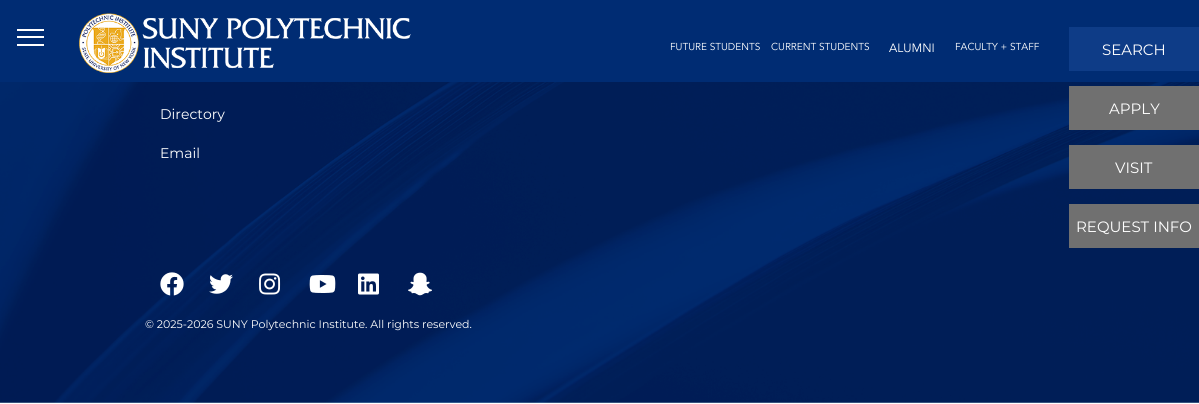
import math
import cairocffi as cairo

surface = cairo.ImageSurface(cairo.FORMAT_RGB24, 1199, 404)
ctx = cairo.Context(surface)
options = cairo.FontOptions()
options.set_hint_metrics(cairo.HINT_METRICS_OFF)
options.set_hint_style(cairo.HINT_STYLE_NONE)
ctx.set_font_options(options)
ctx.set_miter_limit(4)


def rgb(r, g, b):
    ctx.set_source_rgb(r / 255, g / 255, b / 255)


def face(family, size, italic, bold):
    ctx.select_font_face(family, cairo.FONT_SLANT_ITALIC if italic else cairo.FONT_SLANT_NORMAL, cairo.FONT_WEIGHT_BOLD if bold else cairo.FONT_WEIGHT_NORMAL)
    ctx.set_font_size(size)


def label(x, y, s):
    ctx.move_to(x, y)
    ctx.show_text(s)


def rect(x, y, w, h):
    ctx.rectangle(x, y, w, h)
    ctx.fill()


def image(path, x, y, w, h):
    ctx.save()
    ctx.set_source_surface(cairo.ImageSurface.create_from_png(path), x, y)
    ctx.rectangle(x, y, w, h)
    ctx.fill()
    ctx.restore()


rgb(255, 255, 255)
ctx.paint()
image('image0.png', 0, 82, 1199, 321)
face('Montserrat', 14, 0, 0)
rgb(255, 255, 255)
label(160, 119, 'Directory')
label(160, 158, 'Email')
image('image1.png', 160, 272, 24, 24)
image('image2.png', 209, 274, 24, 20)
image('image3.png', 259, 273, 22, 22)
image('image4.png', 309, 275, 27, 18)
image('image5.png', 358, 273, 21, 22)
image('image6.png', 408, 272, 24, 24)
face('Montserrat', 11, 0, 0)
label(145, 328, '© 2025-2026 SUNY Polytechnic Institute. All rights reserved.')
rgb(0, 44, 115)
rect(0, 0, 1199, 82)
image('image7.png', 17, 29, 27, 17)
image('image8.png', 79, 13, 332, 60)
face('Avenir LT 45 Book', 10, 0, 0)
rgb(255, 255, 255)
label(670, 50, 'FUTURE STUDENTS')
label(771, 50, 'CURRENT STUDENTS')
face('Avenir LT 45 Book', 12, 0, 0)
label(889, 52, 'ALUMNI')
face('Avenir LT 45 Book', 10, 0, 0)
label(955, 50, 'FACULTY + STAFF')
rgb(14, 60, 135)
rect(1069, 27, 130, 44)
face('Montserrat', 15, 0, 0)
rgb(255, 255, 255)
label(1102, 55, 'SEARCH')
rgb(112, 112, 112)
rect(1069, 86, 130, 44)
rgb(255, 255, 255)
label(1109, 114, 'APPLY')
rgb(112, 112, 112)
rect(1069, 145, 130, 44)
rgb(255, 255, 255)
label(1115, 173, 'VISIT')
rgb(112, 112, 112)
rect(1069, 204, 130, 44)
rgb(255, 255, 255)
label(1076, 232, 'REQUEST INFO')
surface.write_to_png('render.png')
